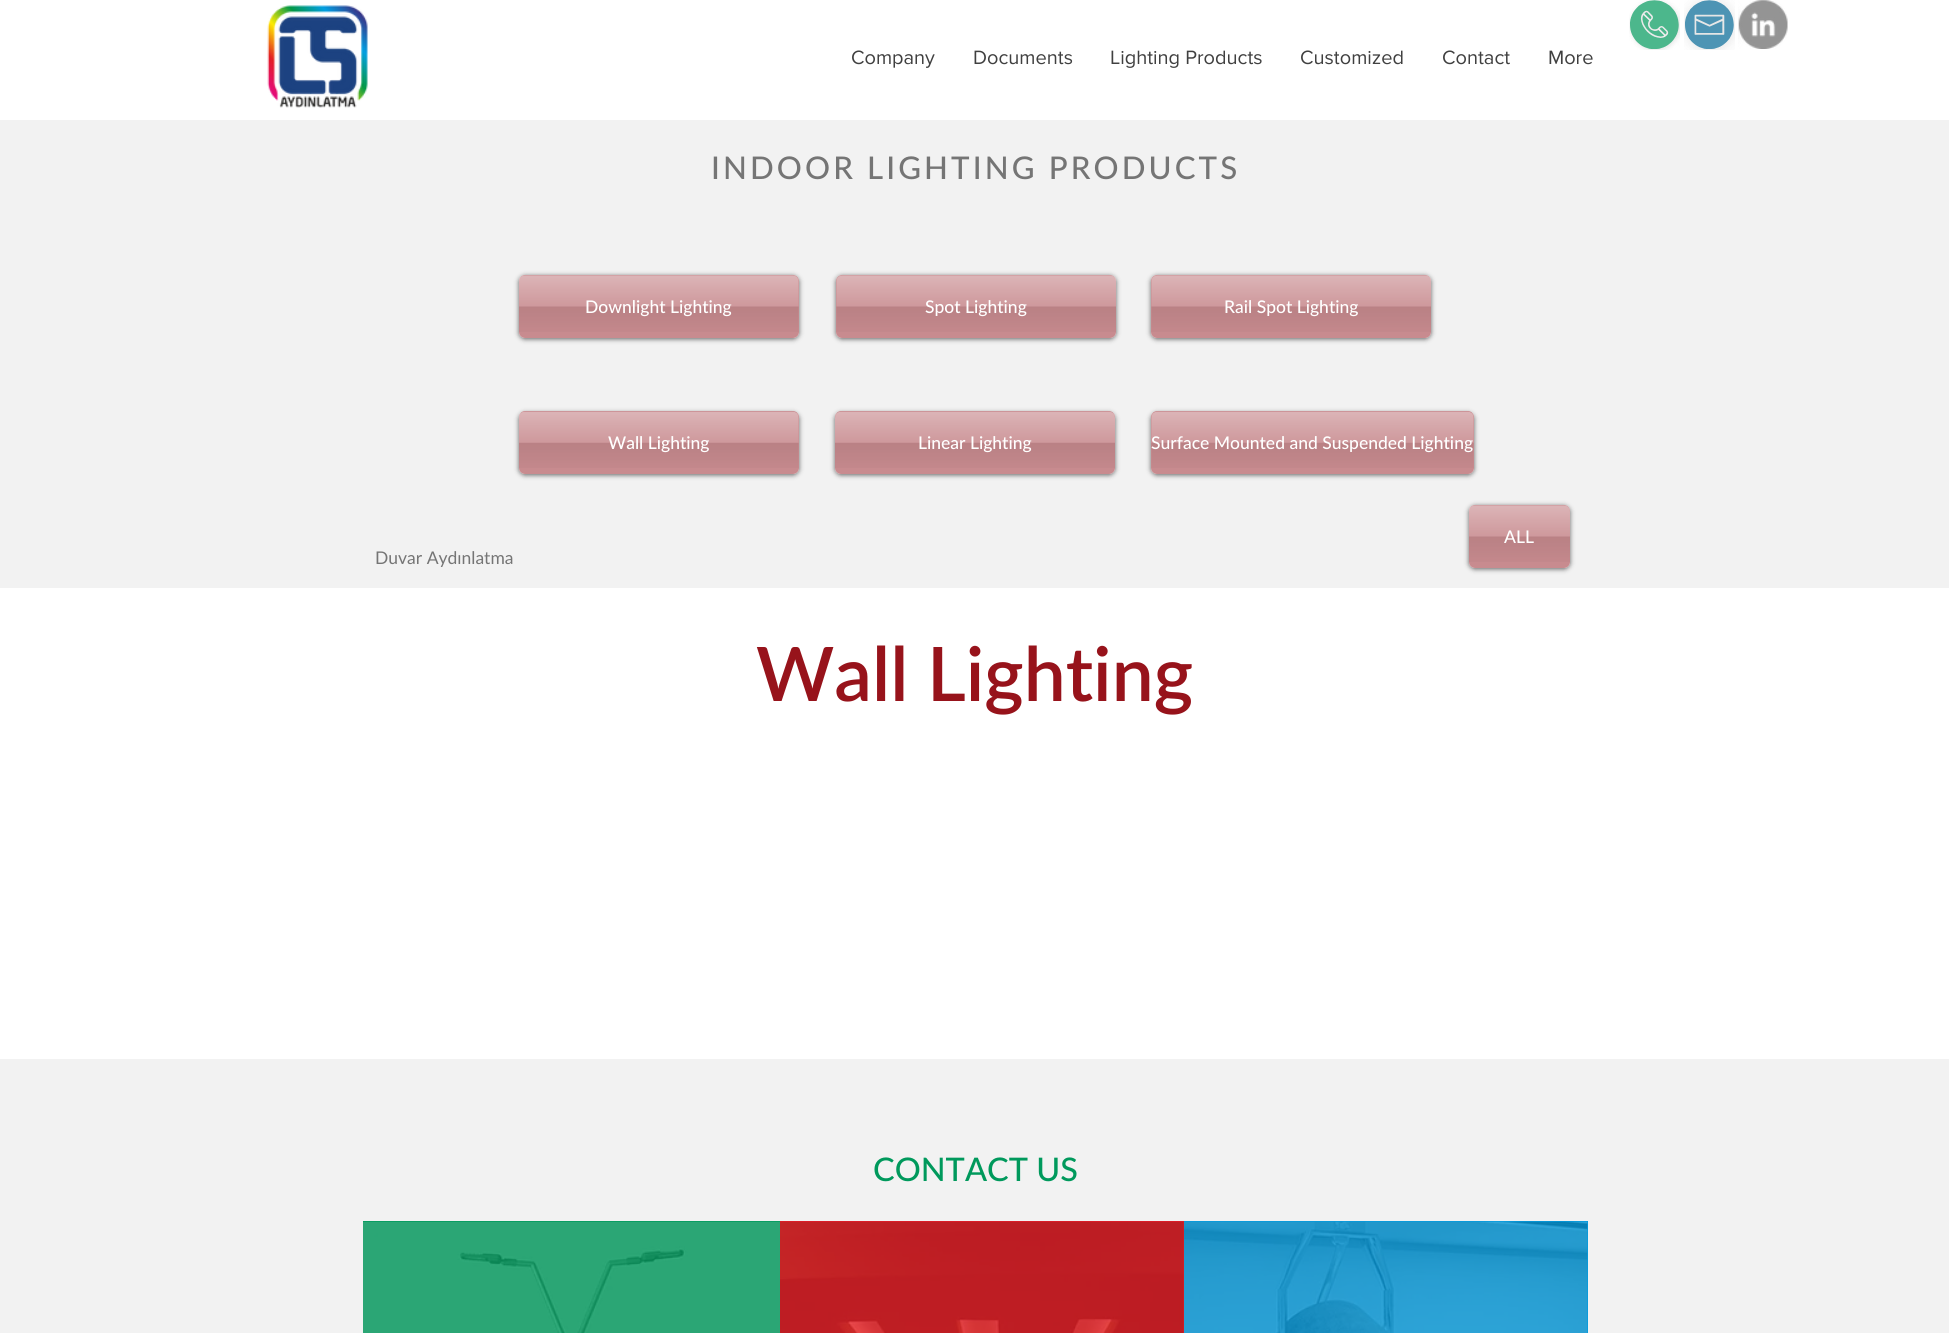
import math
import cairocffi as cairo

surface = cairo.ImageSurface(cairo.FORMAT_RGB24, 1949, 1333)
ctx = cairo.Context(surface)
options = cairo.FontOptions()
options.set_hint_metrics(cairo.HINT_METRICS_OFF)
options.set_hint_style(cairo.HINT_STYLE_NONE)
ctx.set_font_options(options)
ctx.set_miter_limit(4)


def rgb(r, g, b):
    ctx.set_source_rgb(r / 255, g / 255, b / 255)


def face(family, size, italic, bold):
    ctx.select_font_face(family, cairo.FONT_SLANT_ITALIC if italic else cairo.FONT_SLANT_NORMAL, cairo.FONT_WEIGHT_BOLD if bold else cairo.FONT_WEIGHT_NORMAL)
    ctx.set_font_size(size)


def label(x, y, s):
    ctx.move_to(x, y)
    ctx.show_text(s)


def tracked(x, y, s, letter, word):
    ctx.move_to(x, y)
    for ch in s:
        ctx.show_text(ch)
        ctx.rel_move_to(letter + word * (ch == ' '), 0)


def rect(x, y, w, h):
    ctx.rectangle(x, y, w, h)
    ctx.fill()


def rrect(x, y, w, h, r):
    ctx.new_sub_path()
    for i, (u, v) in enumerate([(x + w - r, y + h - r), (x + r, y + h - r), (x + r, y + r), (x + w - r, y + r)]):
        ctx.arc(u, v, r, i * math.pi / 2, (i + 1) * math.pi / 2)
    ctx.close_path()


def soft_shadow(x, y, w, h, r, blur, alpha):
    ctx.push_group_with_content(cairo.CONTENT_ALPHA)
    ctx.set_operator(cairo.OPERATOR_SOURCE)
    for i in range(15, -16, -2):
        e = blur * i / 6
        if min(w, h) + 2 * e > 0:
            ctx.set_source_rgba(0, 0, 0, alpha * math.erfc((i - 1) / 8.5) / 2)
            rrect(x - e, y - e, w + 2 * e, h + 2 * e, max(0, min(r + e + blur * .6, min(w, h) / 2 + e)))
            ctx.fill()
    ctx.mask(ctx.pop_group())


def image(path, x, y, w, h):
    ctx.save()
    ctx.set_source_surface(cairo.ImageSurface.create_from_png(path), x, y)
    ctx.rectangle(x, y, w, h)
    ctx.fill()
    ctx.restore()


rgb(255, 255, 255)
ctx.paint()
image('image0.png', 267, 5, 101, 103)
image('image1.png', 1629, 0, 51, 50)
image('image2.png', 1684, 0, 51, 50)
image('image3.png', 1738, 0, 50, 49)
face('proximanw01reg', 20, 0, 0)
rgb(64, 64, 64)
label(851, 64, 'Company')
label(973, 64, 'Documents')
label(1110, 64, 'Lighting Products')
label(1300, 64, 'Customized')
label(1442, 64, 'Contact')
label(1548, 64, 'More')
rgb(242, 242, 242)
rect(0, 120, 1949, 468)
face('Lato Medium', 31.25, 0, 0)
rgb(117, 117, 117)
tracked(711, 179, 'INDOOR LIGHTING PRODUCTS', 3.1, 0)
ctx.save()
ctx.set_fill_rule(cairo.FILL_RULE_EVEN_ODD)
ctx.new_path()
ctx.move_to(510, 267)
ctx.line_to(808, 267)
ctx.line_to(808, 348)
ctx.line_to(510, 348)
ctx.close_path()
ctx.move_to(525, 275)
ctx.line_to(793, 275)
ctx.curve_to(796.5, 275, 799, 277.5, 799, 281)
ctx.line_to(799, 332)
ctx.curve_to(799, 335.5, 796.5, 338, 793, 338)
ctx.line_to(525, 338)
ctx.curve_to(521.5, 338, 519, 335.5, 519, 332)
ctx.line_to(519, 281)
ctx.curve_to(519, 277.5, 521.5, 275, 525, 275)
ctx.close_path()
ctx.clip()
rgb(0, 0, 0)
soft_shadow(519, 276, 280, 63, 6, 2.5, 0.6)
ctx.restore()
ctx.set_source_rgba(0.592, 0.075, 0.106, 0.46)
rrect(519, 275, 280, 63, 6)
ctx.fill()
image('image4.png', 519, 275, 280, 57)
face('Lato Medium', 17.5, 0, 0)
rgb(255, 255, 255)
label(585, 313, 'Downlight Lighting')
ctx.save()
ctx.set_fill_rule(cairo.FILL_RULE_EVEN_ODD)
ctx.new_path()
ctx.move_to(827, 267)
ctx.line_to(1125, 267)
ctx.line_to(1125, 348)
ctx.line_to(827, 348)
ctx.close_path()
ctx.move_to(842, 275)
ctx.line_to(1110, 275)
ctx.curve_to(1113.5, 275, 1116, 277.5, 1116, 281)
ctx.line_to(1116, 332)
ctx.curve_to(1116, 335.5, 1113.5, 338, 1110, 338)
ctx.line_to(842, 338)
ctx.curve_to(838.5, 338, 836, 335.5, 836, 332)
ctx.line_to(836, 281)
ctx.curve_to(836, 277.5, 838.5, 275, 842, 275)
ctx.close_path()
ctx.clip()
rgb(0, 0, 0)
soft_shadow(836, 276, 280, 63, 6, 2.5, 0.6)
ctx.restore()
ctx.set_source_rgba(0.592, 0.075, 0.106, 0.46)
rrect(836, 275, 280, 63, 6)
ctx.fill()
image('image5.png', 836, 275, 280, 57)
rgb(255, 255, 255)
label(925, 313, 'Spot Lighting')
ctx.save()
ctx.set_fill_rule(cairo.FILL_RULE_EVEN_ODD)
ctx.new_path()
ctx.move_to(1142, 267)
ctx.line_to(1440, 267)
ctx.line_to(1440, 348)
ctx.line_to(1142, 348)
ctx.close_path()
ctx.move_to(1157, 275)
ctx.line_to(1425, 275)
ctx.curve_to(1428.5, 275, 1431, 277.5, 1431, 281)
ctx.line_to(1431, 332)
ctx.curve_to(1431, 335.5, 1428.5, 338, 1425, 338)
ctx.line_to(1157, 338)
ctx.curve_to(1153.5, 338, 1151, 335.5, 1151, 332)
ctx.line_to(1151, 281)
ctx.curve_to(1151, 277.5, 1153.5, 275, 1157, 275)
ctx.close_path()
ctx.clip()
rgb(0, 0, 0)
soft_shadow(1151, 276, 280, 63, 6, 2.5, 0.6)
ctx.restore()
ctx.set_source_rgba(0.592, 0.075, 0.106, 0.46)
rrect(1151, 275, 280, 63, 6)
ctx.fill()
image('image5.png', 1151, 275, 280, 57)
rgb(255, 255, 255)
label(1224, 313, 'Rail Spot Lighting')
ctx.save()
ctx.set_fill_rule(cairo.FILL_RULE_EVEN_ODD)
ctx.new_path()
ctx.move_to(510, 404)
ctx.line_to(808, 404)
ctx.line_to(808, 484)
ctx.line_to(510, 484)
ctx.close_path()
ctx.move_to(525, 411)
ctx.line_to(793, 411)
ctx.curve_to(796.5, 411, 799, 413.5, 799, 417)
ctx.line_to(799, 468)
ctx.curve_to(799, 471.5, 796.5, 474, 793, 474)
ctx.line_to(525, 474)
ctx.curve_to(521.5, 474, 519, 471.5, 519, 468)
ctx.line_to(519, 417)
ctx.curve_to(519, 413.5, 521.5, 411, 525, 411)
ctx.close_path()
ctx.clip()
rgb(0, 0, 0)
soft_shadow(519, 413, 280, 62, 6, 2.5, 0.6)
ctx.restore()
ctx.set_source_rgba(0.592, 0.075, 0.106, 0.46)
rrect(519, 411, 280, 63, 6)
ctx.fill()
image('image6.png', 519, 411, 280, 57)
rgb(255, 255, 255)
label(608, 449, 'Wall Lighting')
ctx.save()
ctx.set_fill_rule(cairo.FILL_RULE_EVEN_ODD)
ctx.new_path()
ctx.move_to(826, 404)
ctx.line_to(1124, 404)
ctx.line_to(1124, 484)
ctx.line_to(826, 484)
ctx.close_path()
ctx.move_to(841, 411)
ctx.line_to(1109, 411)
ctx.curve_to(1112.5, 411, 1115, 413.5, 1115, 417)
ctx.line_to(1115, 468)
ctx.curve_to(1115, 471.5, 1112.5, 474, 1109, 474)
ctx.line_to(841, 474)
ctx.curve_to(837.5, 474, 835, 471.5, 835, 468)
ctx.line_to(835, 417)
ctx.curve_to(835, 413.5, 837.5, 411, 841, 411)
ctx.close_path()
ctx.clip()
rgb(0, 0, 0)
soft_shadow(835, 413, 280, 62, 6, 2.5, 0.6)
ctx.restore()
ctx.set_source_rgba(0.592, 0.075, 0.106, 0.46)
rrect(835, 411, 280, 63, 6)
ctx.fill()
image('image7.png', 835, 411, 280, 57)
rgb(255, 255, 255)
label(918, 449, 'Linear Lighting')
ctx.save()
ctx.set_fill_rule(cairo.FILL_RULE_EVEN_ODD)
ctx.new_path()
ctx.move_to(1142, 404)
ctx.line_to(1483, 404)
ctx.line_to(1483, 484)
ctx.line_to(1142, 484)
ctx.close_path()
ctx.move_to(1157, 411)
ctx.line_to(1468, 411)
ctx.curve_to(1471.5, 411, 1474, 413.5, 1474, 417)
ctx.line_to(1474, 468)
ctx.curve_to(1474, 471.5, 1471.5, 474, 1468, 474)
ctx.line_to(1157, 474)
ctx.curve_to(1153.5, 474, 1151, 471.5, 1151, 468)
ctx.line_to(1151, 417)
ctx.curve_to(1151, 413.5, 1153.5, 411, 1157, 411)
ctx.close_path()
ctx.clip()
rgb(0, 0, 0)
soft_shadow(1151, 413, 323, 62, 6, 2.5, 0.6)
ctx.restore()
ctx.set_source_rgba(0.592, 0.075, 0.106, 0.46)
rrect(1151, 411, 323, 63, 6)
ctx.fill()
image('image8.png', 1151, 411, 323, 57)
rgb(255, 255, 255)
label(1151, 449, 'Surface Mounted and Suspended Lighting')
ctx.save()
ctx.set_fill_rule(cairo.FILL_RULE_EVEN_ODD)
ctx.new_path()
ctx.move_to(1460, 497)
ctx.line_to(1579, 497)
ctx.line_to(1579, 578)
ctx.line_to(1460, 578)
ctx.close_path()
ctx.move_to(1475, 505)
ctx.line_to(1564, 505)
ctx.curve_to(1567.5, 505, 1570, 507.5, 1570, 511)
ctx.line_to(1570, 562)
ctx.curve_to(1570, 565.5, 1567.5, 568, 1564, 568)
ctx.line_to(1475, 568)
ctx.curve_to(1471.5, 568, 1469, 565.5, 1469, 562)
ctx.line_to(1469, 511)
ctx.curve_to(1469, 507.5, 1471.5, 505, 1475, 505)
ctx.close_path()
ctx.clip()
rgb(0, 0, 0)
soft_shadow(1469, 506, 101, 63, 6, 2.5, 0.6)
ctx.restore()
ctx.set_source_rgba(0.592, 0.075, 0.106, 0.46)
rrect(1469, 505, 101, 63, 6)
ctx.fill()
image('image9.png', 1469, 505, 101, 57)
rgb(255, 255, 255)
label(1504, 543, 'ALL')
face('Lato', 17.5, 0, 0)
rgb(117, 117, 117)
label(375, 564, 'Duvar Aydınlatma')
face('Lato SemiBold', 75, 0, 0)
rgb(151, 19, 27)
label(756, 701, 'Wall Lighting')
rgb(242, 242, 242)
rect(0, 1059, 1949, 274)
face('Lato Medium', 32.5, 0, 0)
rgb(0, 153, 92)
label(873, 1181, 'CONTACT US')
rect(363, 1221, 417, 112)
image('image10.png', 363, 1221, 417, 112)
rgb(227, 29, 41)
rect(780, 1221, 404, 112)
image('image11.png', 780, 1221, 404, 112)
rgb(3, 154, 222)
rect(1184, 1221, 404, 112)
image('image12.png', 1184, 1221, 404, 112)
surface.write_to_png('render.png')
